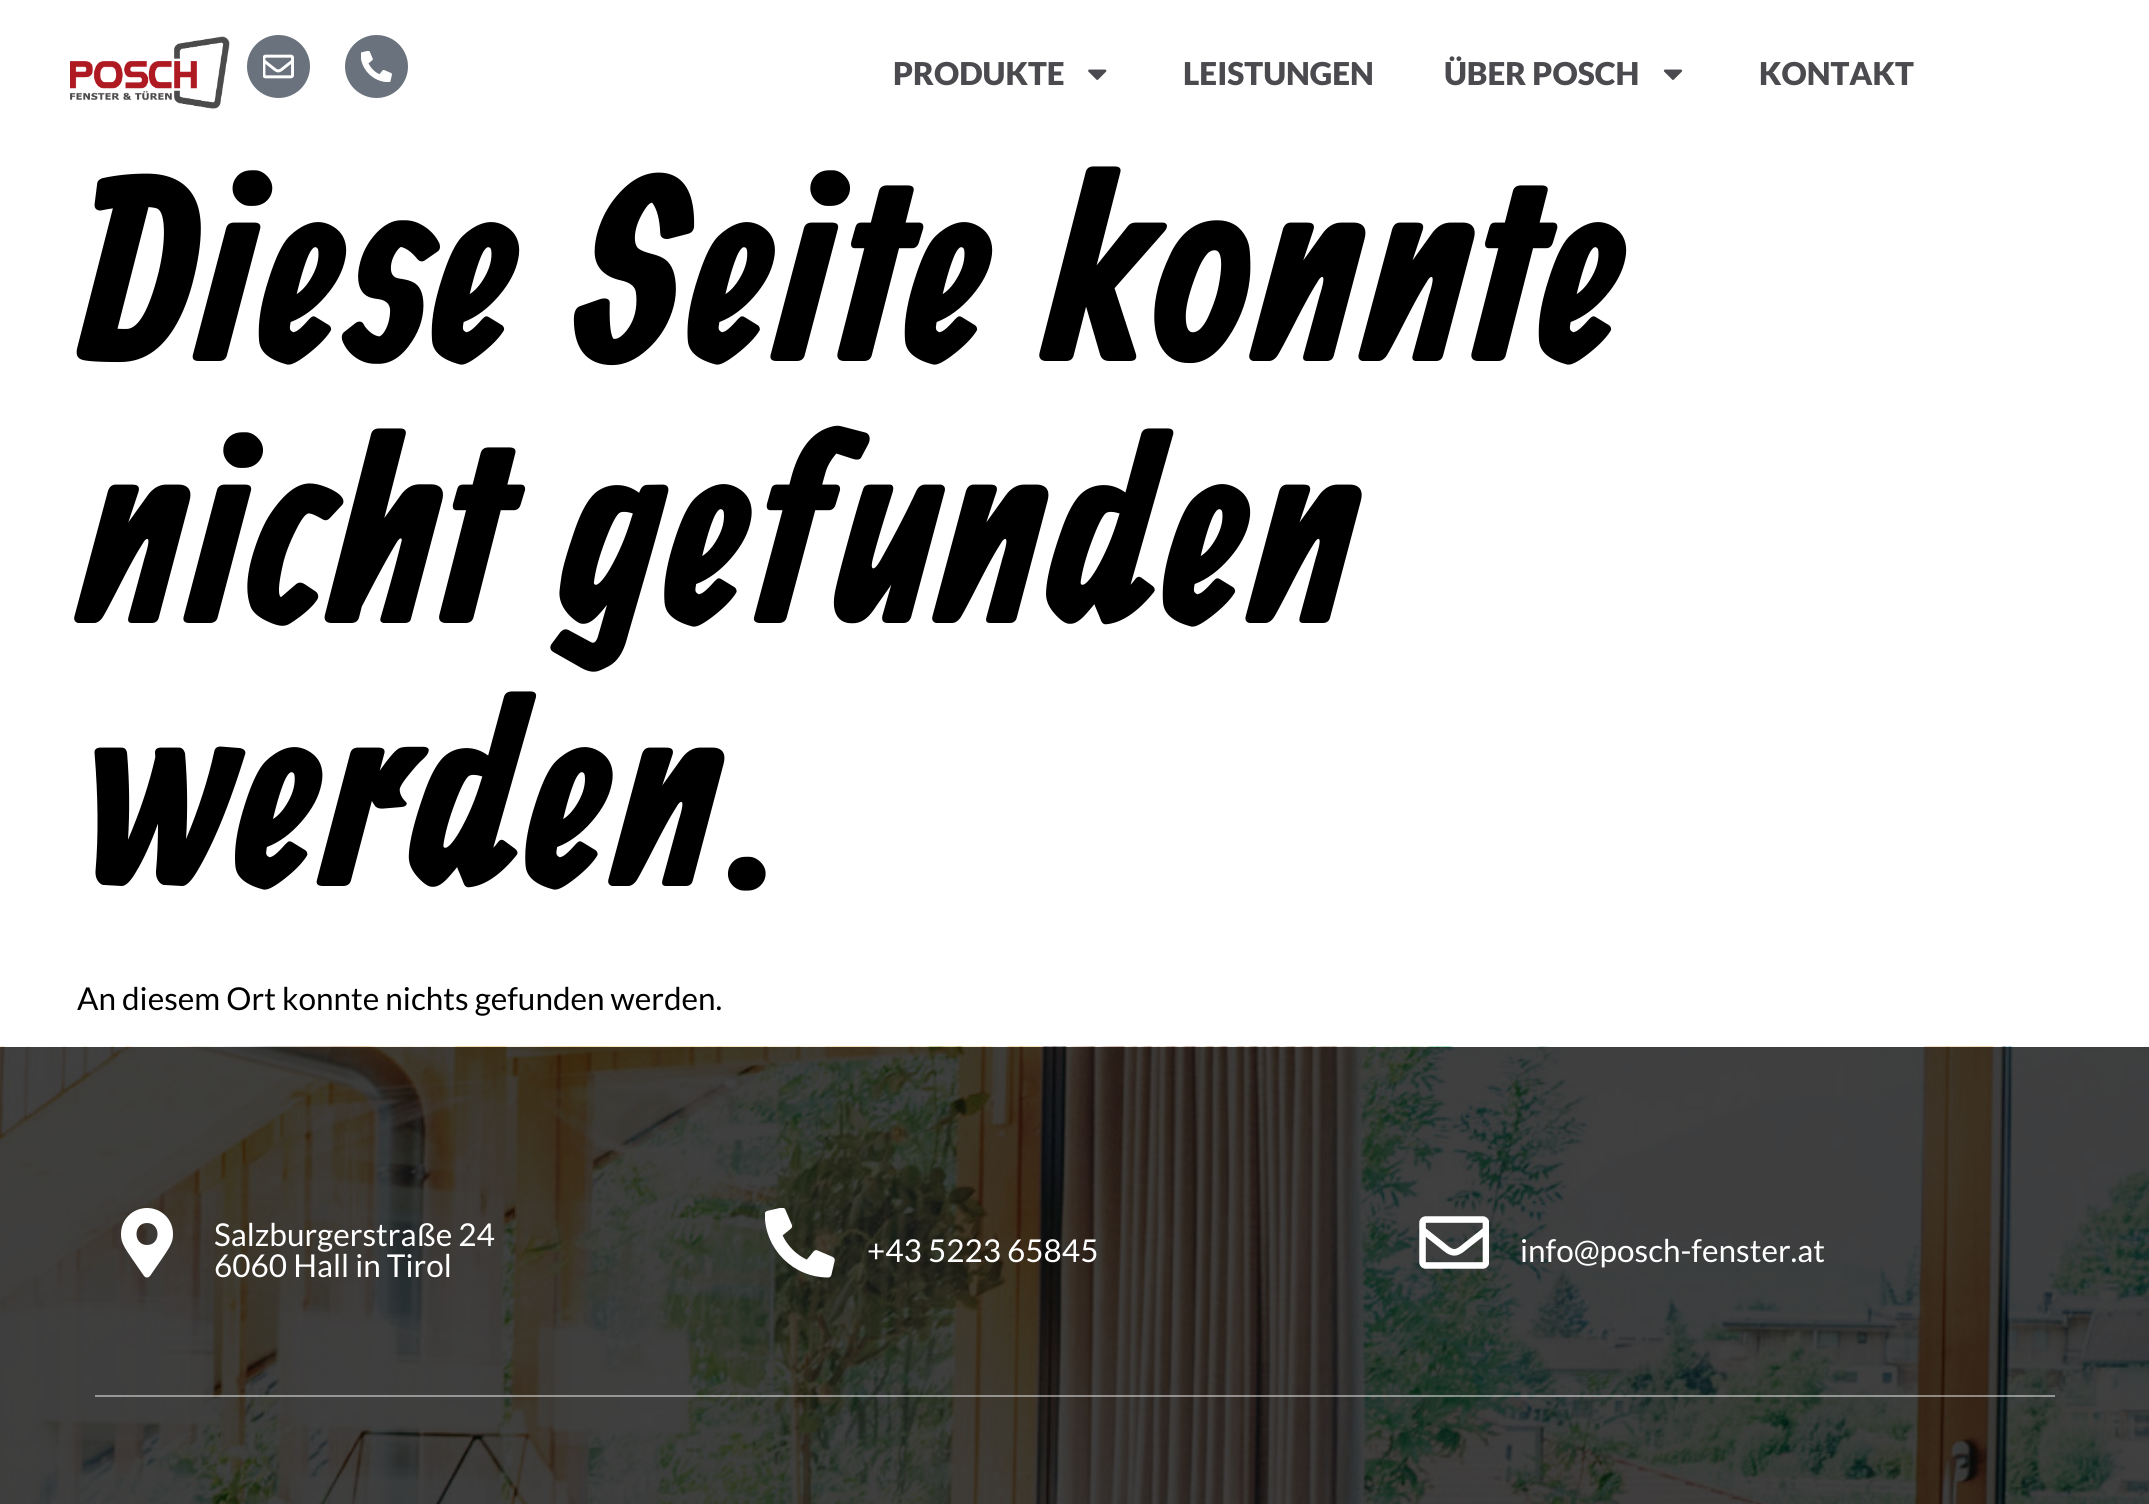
import math
import cairocffi as cairo

surface = cairo.ImageSurface(cairo.FORMAT_RGB24, 2149, 1504)
ctx = cairo.Context(surface)
options = cairo.FontOptions()
options.set_hint_metrics(cairo.HINT_METRICS_OFF)
options.set_hint_style(cairo.HINT_STYLE_NONE)
ctx.set_font_options(options)
ctx.set_miter_limit(4)


def rgb(r, g, b):
    ctx.set_source_rgb(r / 255, g / 255, b / 255)


def face(family, size, italic, bold):
    ctx.select_font_face(family, cairo.FONT_SLANT_ITALIC if italic else cairo.FONT_SLANT_NORMAL, cairo.FONT_WEIGHT_BOLD if bold else cairo.FONT_WEIGHT_NORMAL)
    ctx.set_font_size(size)


def label(x, y, s):
    ctx.move_to(x, y)
    ctx.show_text(s)


def rect(x, y, w, h):
    ctx.rectangle(x, y, w, h)
    ctx.fill()


def image(path, x, y, w, h):
    ctx.save()
    ctx.set_source_surface(cairo.ImageSurface.create_from_png(path), x, y)
    ctx.rectangle(x, y, w, h)
    ctx.fill()
    ctx.restore()


rgb(255, 255, 255)
ctx.paint()
image('image0.png', 70, 36, 160, 73)
rgb(105, 114, 125)
ctx.arc(278.5, 66.5, 31.5, 0, 2 * math.pi)
ctx.fill()
image('image1.png', 263, 54, 31, 25)
ctx.arc(376.5, 66.5, 31.5, 0, 2 * math.pi)
ctx.fill()
image('image2.png', 361, 51, 31, 31)
face('Lato Black', 31.5, 0, 0)
rgb(75, 75, 79)
label(893, 85, 'PRODUKTE')
image('image3.png', 1088, 69, 19, 11)
label(1183, 85, 'LEISTUNGEN')
label(1444, 85, 'ÜBER POSCH')
image('image4.png', 1663, 69, 20, 11)
label(1759, 85, 'KONTAKT')
face('Allan', 262.5, 0, 1)
rgb(0, 0, 0)
label(77, 361, 'Diese Seite konnte')
label(77, 623, 'nicht gefunden')
label(77, 886, 'werden.')
face('Lato', 31.5, 0, 0)
label(77, 1010, 'An diesem Ort konnte nichts gefunden werden.')
image('image5.png', 0, 1046, 2149, 458)
rgb(255, 255, 255)
ctx.new_path()
ctx.move_to(144, 1276)
ctx.curve_to(124, 1247, 121, 1244, 121, 1234)
ctx.curve_to(121, 1219, 133, 1208, 147, 1208)
ctx.curve_to(161, 1208, 173, 1219, 173, 1234)
ctx.curve_to(173, 1244, 170, 1247, 150, 1276)
ctx.curve_to(148, 1278, 146, 1278, 144, 1276)
ctx.close_path()
ctx.move_to(147, 1245)
ctx.curve_to(161, 1245, 161, 1223, 147, 1223)
ctx.curve_to(133, 1223, 133, 1245, 147, 1245)
ctx.close_path()
ctx.fill()
label(214, 1246, 'Salzburgerstraße 24')
label(214, 1277, '6060 Hall in Tirol')
image('image6.png', 765, 1208, 70, 70)
label(867, 1262, '+43 5223 65845')
image('image7.png', 1419, 1216, 70, 53)
label(1520, 1262, 'info@posch-fenster.at')
ctx.set_source_rgba(1, 1, 1, 0.46)
rect(95, 1395, 1960, 2)
surface.write_to_png('render.png')
